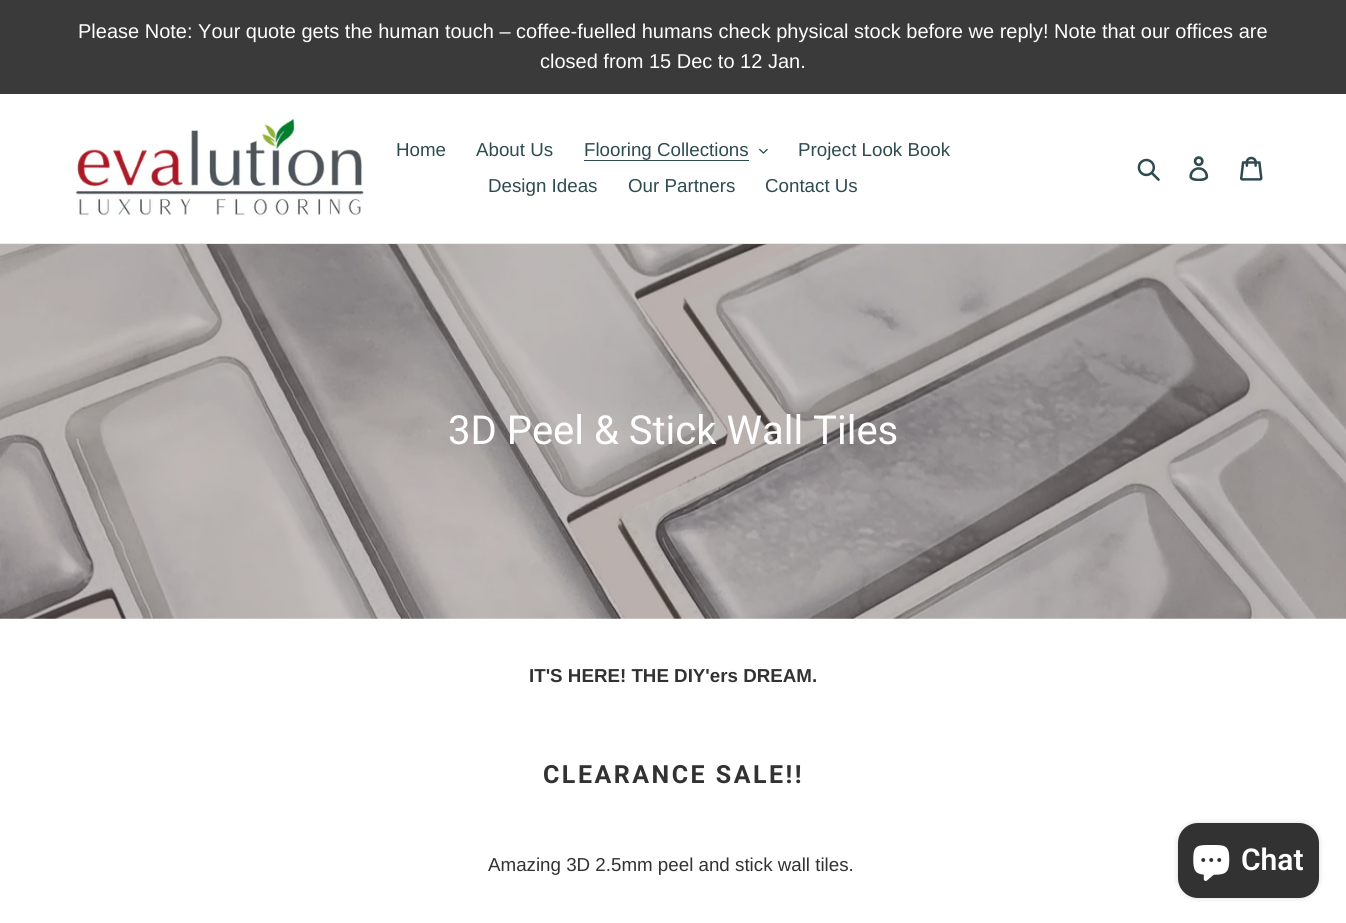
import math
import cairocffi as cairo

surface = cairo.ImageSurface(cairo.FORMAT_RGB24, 1346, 923)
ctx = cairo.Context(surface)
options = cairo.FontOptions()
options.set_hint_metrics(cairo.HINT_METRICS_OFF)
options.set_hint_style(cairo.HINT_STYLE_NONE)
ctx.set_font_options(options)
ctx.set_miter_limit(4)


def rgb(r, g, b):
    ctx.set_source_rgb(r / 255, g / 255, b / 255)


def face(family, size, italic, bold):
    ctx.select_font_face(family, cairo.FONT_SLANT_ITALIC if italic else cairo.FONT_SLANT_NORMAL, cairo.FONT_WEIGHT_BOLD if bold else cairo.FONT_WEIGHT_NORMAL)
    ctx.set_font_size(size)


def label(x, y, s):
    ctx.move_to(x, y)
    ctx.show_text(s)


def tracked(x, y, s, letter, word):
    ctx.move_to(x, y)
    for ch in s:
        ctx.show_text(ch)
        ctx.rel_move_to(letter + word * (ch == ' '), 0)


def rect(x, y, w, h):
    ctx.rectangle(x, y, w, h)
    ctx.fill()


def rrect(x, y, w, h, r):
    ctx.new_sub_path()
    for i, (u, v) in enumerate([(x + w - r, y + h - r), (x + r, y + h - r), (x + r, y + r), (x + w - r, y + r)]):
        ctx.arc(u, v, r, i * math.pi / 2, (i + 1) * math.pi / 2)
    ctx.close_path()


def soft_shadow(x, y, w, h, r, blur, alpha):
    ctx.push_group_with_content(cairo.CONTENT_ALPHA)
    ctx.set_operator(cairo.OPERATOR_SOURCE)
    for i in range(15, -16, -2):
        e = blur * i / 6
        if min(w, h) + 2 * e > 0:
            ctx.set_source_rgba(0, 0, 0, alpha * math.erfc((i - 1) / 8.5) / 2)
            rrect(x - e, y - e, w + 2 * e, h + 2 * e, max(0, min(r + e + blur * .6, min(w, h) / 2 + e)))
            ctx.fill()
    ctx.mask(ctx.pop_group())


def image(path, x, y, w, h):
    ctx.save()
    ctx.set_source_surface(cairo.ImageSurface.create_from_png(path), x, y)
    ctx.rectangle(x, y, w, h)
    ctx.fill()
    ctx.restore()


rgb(255, 255, 255)
ctx.paint()
rgb(58, 58, 58)
rect(0, 0, 1346, 94)
face('Liberation Sans', 20, 0, 0)
rgb(255, 255, 255)
label(78, 38, 'Please Note: Your quote gets the human touch – coffee-fuelled humans check physical stock before we reply! Note that our offices are')
label(540, 68, 'closed from 15 Dec to 12 Jan.')
rgb(235, 235, 235)
rect(0, 243, 1346, 1)
image('image0.png', 75, 118, 289, 99)
face('Liberation Sans', 18.75, 0, 0)
rgb(46, 75, 80)
label(396, 156, 'Home')
label(476, 156, 'About Us')
label(584, 156, 'Flooring Collections')
rect(584, 160, 165, 1)
image('image1.png', 759, 148, 9, 6)
label(798, 156, 'Project Look Book')
label(488, 192, 'Design Ideas')
label(628, 192, 'Our Partners')
label(765, 192, 'Contact Us')
image('image2.png', 1137, 158, 23, 23)
image('image3.png', 1189, 156, 20, 25)
image('image4.png', 1240, 156, 23, 25)
image('image5.png', 0, 244, 1346, 375)
face('Roboto', 40, 0, 0)
rgb(255, 255, 255)
label(448, 444, '3D Peel & Stick Wall Tiles')
face('Liberation Sans', 18.75, 0, 1)
rgb(51, 50, 50)
label(529, 682, 'IT\'S HERE! THE DIY\'ers DREAM.')
face('Roboto', 25, 0, 1)
tracked(543, 783, 'CLEARANCE SALE!!', 2.5, 0)
face('Liberation Sans', 18.75, 0, 0)
label(488, 871, 'Amazing 3D 2.5mm peel and stick wall tiles.')
rgb(0, 0, 0)
soft_shadow(1178, 823, 141, 75, 20, 3, 0.15)
rgb(51, 50, 50)
rrect(1178, 823, 141, 75, 20)
ctx.fill()
image('image6.png', 1193, 845, 37, 36)
face('Roboto SemiBold', 30, 0, 0)
rgb(255, 255, 255)
label(1241, 870, 'Chat')
surface.write_to_png('render.png')
